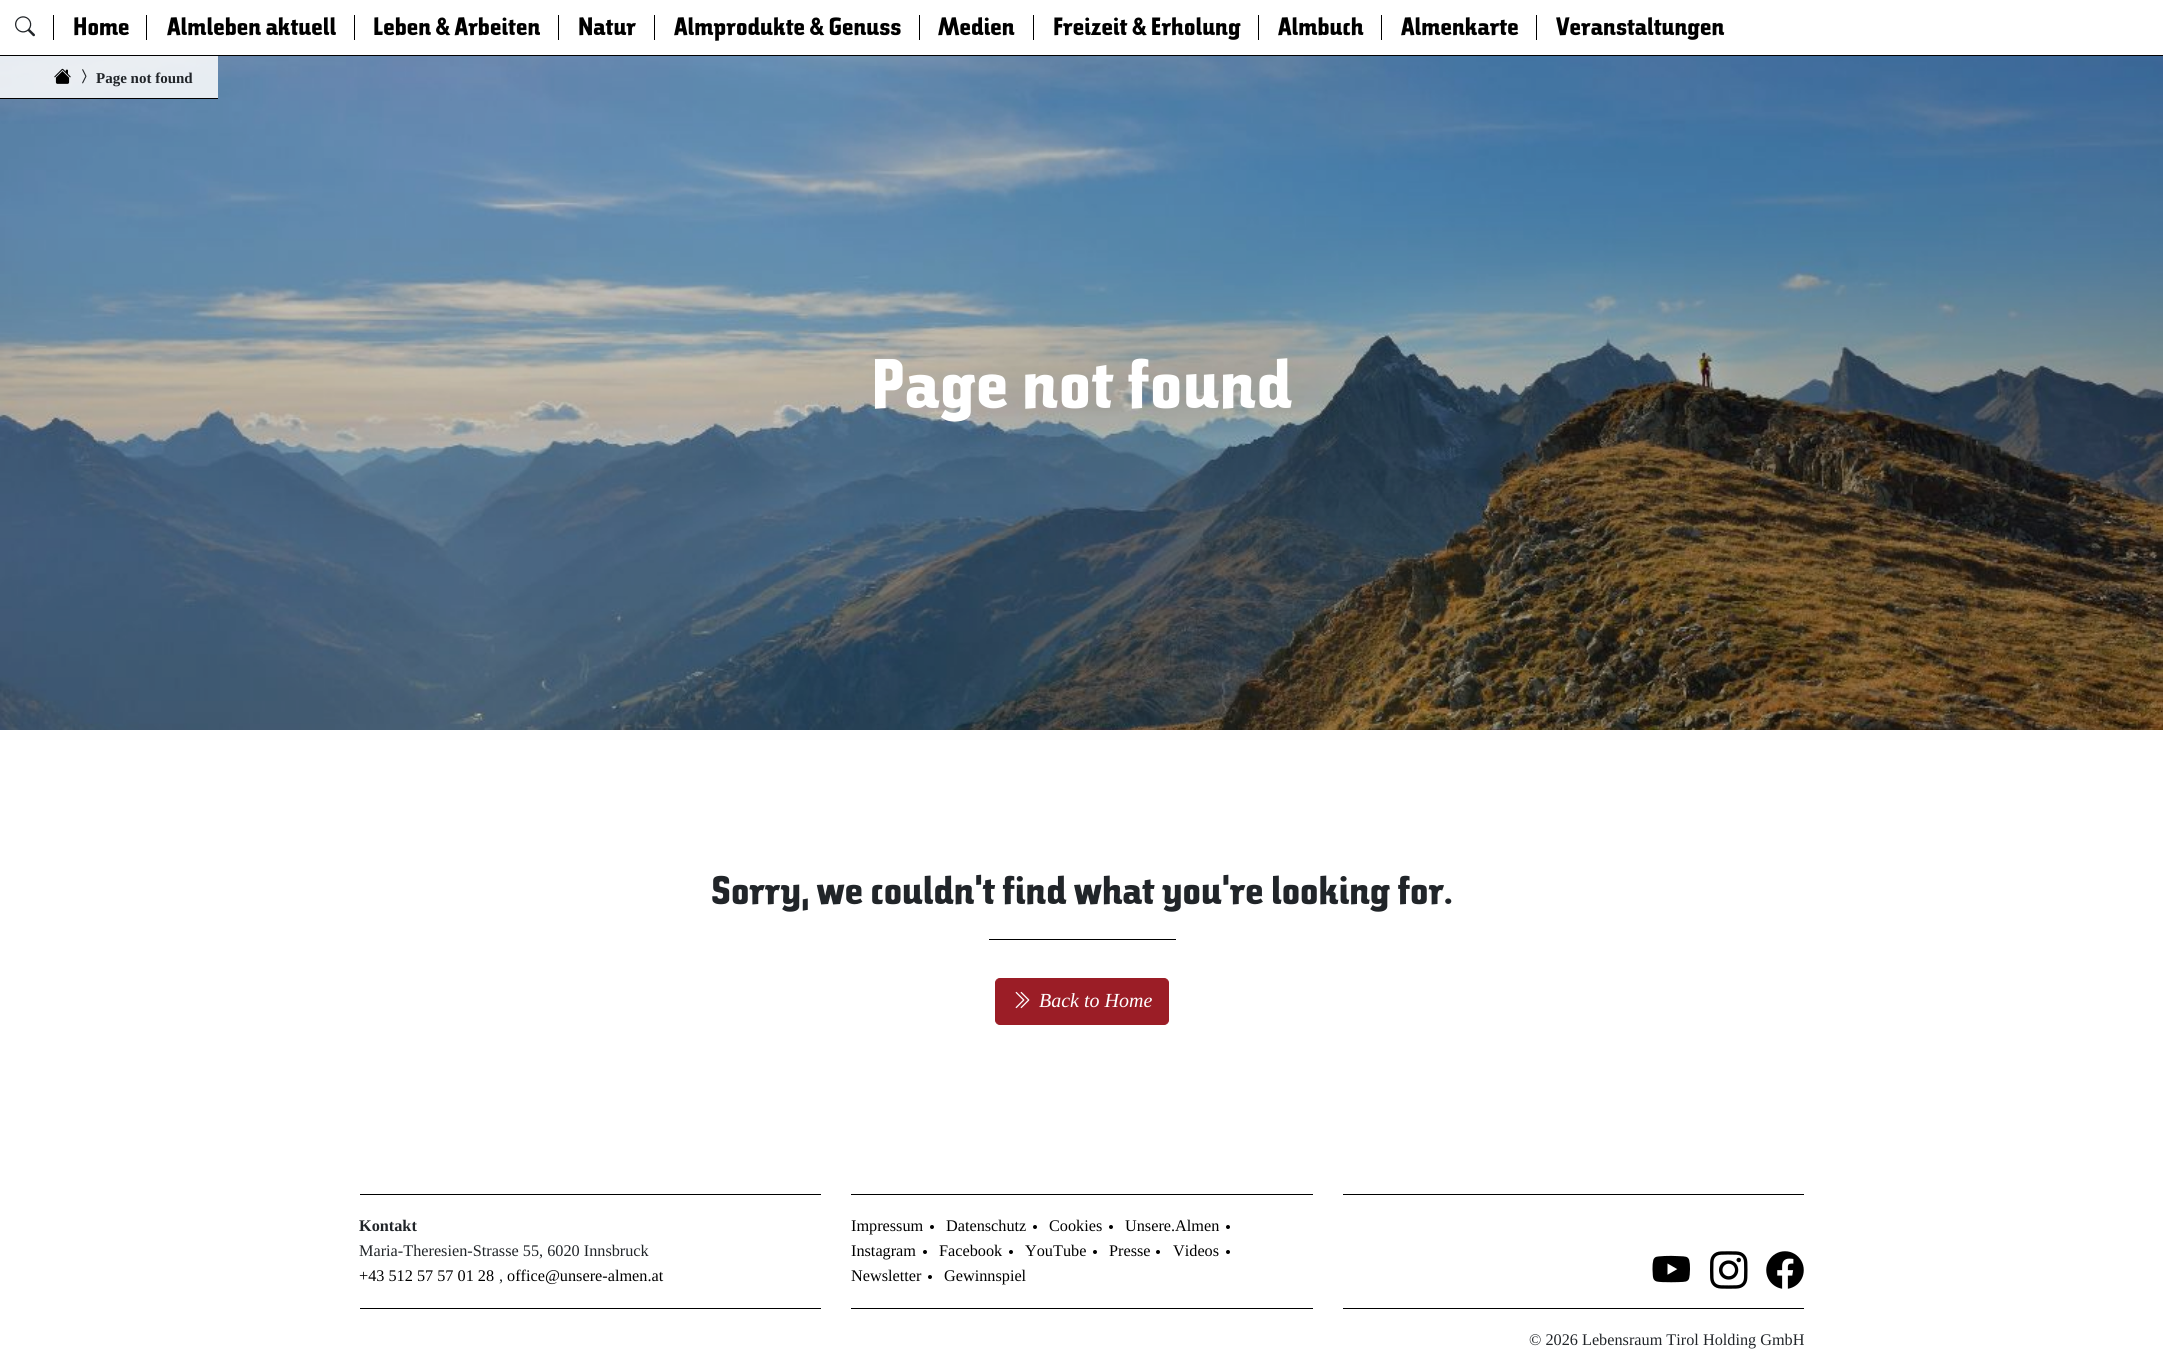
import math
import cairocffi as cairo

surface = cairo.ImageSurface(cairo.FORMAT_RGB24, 2163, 1362)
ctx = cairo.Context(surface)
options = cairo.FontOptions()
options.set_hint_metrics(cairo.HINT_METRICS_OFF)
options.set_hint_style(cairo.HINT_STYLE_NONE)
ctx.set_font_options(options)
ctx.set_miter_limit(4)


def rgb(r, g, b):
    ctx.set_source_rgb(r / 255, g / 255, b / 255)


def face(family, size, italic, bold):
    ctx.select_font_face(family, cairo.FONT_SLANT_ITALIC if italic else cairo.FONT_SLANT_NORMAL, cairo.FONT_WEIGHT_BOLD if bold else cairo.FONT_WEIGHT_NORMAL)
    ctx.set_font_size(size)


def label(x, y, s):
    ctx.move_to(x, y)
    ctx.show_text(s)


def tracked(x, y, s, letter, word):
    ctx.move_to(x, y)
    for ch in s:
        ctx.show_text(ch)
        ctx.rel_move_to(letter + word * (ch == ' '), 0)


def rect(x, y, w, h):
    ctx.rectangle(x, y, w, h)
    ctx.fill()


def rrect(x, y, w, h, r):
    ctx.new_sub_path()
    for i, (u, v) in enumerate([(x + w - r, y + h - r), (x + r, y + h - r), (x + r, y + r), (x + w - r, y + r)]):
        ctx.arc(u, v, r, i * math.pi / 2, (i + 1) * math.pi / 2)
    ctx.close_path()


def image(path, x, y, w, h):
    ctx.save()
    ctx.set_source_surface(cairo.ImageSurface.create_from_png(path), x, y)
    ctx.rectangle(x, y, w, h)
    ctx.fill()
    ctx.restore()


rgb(255, 255, 255)
ctx.paint()
rgb(0, 0, 0)
rect(0, 55, 2163, 1)
image('image0.png', 15, 16, 20, 21)
rect(53, 15, 1, 25)
face('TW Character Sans', 25, 0, 0)
label(73, 35, 'Home')
rect(146, 15, 1, 25)
label(167, 35, 'Almleben aktuell')
rect(354, 15, 1, 25)
label(373, 35, 'Leben & Arbeiten')
rect(558, 15, 1, 25)
label(578, 35, 'Natur')
rect(654, 15, 1, 25)
label(674, 35, 'Almprodukte & Genuss')
rect(919, 15, 1, 25)
label(938, 35, 'Medien')
rect(1033, 15, 1, 25)
label(1053, 35, 'Freizeit & Erholung')
rect(1258, 15, 1, 25)
label(1278, 35, 'Almbuch')
rect(1381, 15, 1, 25)
label(1401, 35, 'Almenkarte')
rect(1536, 15, 1, 25)
label(1556, 35, 'Veranstaltungen')
image('image3.png', 0, 56, 2163, 674)
ctx.set_source_rgba(1, 1, 1, 0.85)
rect(0, 56, 218, 42)
rgb(0, 0, 0)
rect(0, 98, 218, 1)
image('image1.png', 54, 68, 17, 16)
image('image2.png', 82, 69, 5, 15)
face('Liberation Serif', 15, 0, 1)
rgb(33, 37, 41)
label(96, 83, 'Page not found')
face('TW Character Sans', 70, 0, 0)
rgb(255, 255, 255)
tracked(871, 408, 'Page not found', 0.6, 0)
face('TW Character Sans', 40, 0, 0)
rgb(33, 37, 41)
label(711, 904, 'Sorry, we couldn\'t find what you\'re looking for.')
rgb(0, 0, 0)
rect(989, 939, 187, 1)
rgb(155, 29, 38)
rrect(995.5, 978.5, 173, 46, 4.5)
ctx.fill_preserve()
ctx.set_line_width(1)
ctx.stroke()
image('image4.png', 1015, 991, 15, 18)
face('Liberation Serif', 20, 1, 0)
rgb(255, 255, 255)
label(1039, 1007, 'Back to Home')
rgb(0, 0, 0)
rect(360, 1194, 461, 1)
face('Liberation Serif', 16.25, 0, 1)
rgb(33, 37, 41)
label(359, 1231, 'Kontakt')
face('Liberation Serif', 16.25, 0, 0)
label(359, 1256, 'Maria-Theresien-Strasse 55, 6020 Innsbruck')
rgb(0, 0, 0)
label(359, 1281, '+43 512 57 57 01 28')
rgb(33, 37, 41)
label(499, 1281, ',')
rgb(0, 0, 0)
label(507, 1281, 'office@unsere-almen.at')
rect(360, 1308, 461, 1)
rect(851, 1194, 462, 1)
label(851, 1231, 'Impressum')
ctx.new_path()
ctx.arc(932, 1227, 2, 0, 2 * math.pi)
ctx.fill()
label(946, 1231, 'Datenschutz')
ctx.new_path()
ctx.arc(1035, 1227, 2, 0, 2 * math.pi)
ctx.fill()
label(1049, 1231, 'Cookies')
ctx.new_path()
ctx.arc(1111, 1227, 2, 0, 2 * math.pi)
ctx.fill()
label(1125, 1231, 'Unsere.Almen')
ctx.new_path()
ctx.arc(1228, 1227, 2, 0, 2 * math.pi)
ctx.fill()
label(851, 1256, 'Instagram')
ctx.new_path()
ctx.arc(925, 1252, 2, 0, 2 * math.pi)
ctx.fill()
label(939, 1256, 'Facebook')
ctx.new_path()
ctx.arc(1011, 1252, 2, 0, 2 * math.pi)
ctx.fill()
label(1025, 1256, 'YouTube')
ctx.new_path()
ctx.arc(1095, 1252, 2, 0, 2 * math.pi)
ctx.fill()
label(1109, 1256, 'Presse')
ctx.new_path()
ctx.arc(1158, 1252, 2, 0, 2 * math.pi)
ctx.fill()
label(1173, 1256, 'Videos')
ctx.new_path()
ctx.arc(1228, 1252, 2, 0, 2 * math.pi)
ctx.fill()
label(851, 1281, 'Newsletter')
ctx.new_path()
ctx.arc(930, 1277, 2, 0, 2 * math.pi)
ctx.fill()
label(944, 1281, 'Gewinnspiel')
rect(851, 1308, 462, 1)
rect(1343, 1194, 461, 1)
image('image5.png', 1652, 1255, 38, 28)
image('image6.png', 1710, 1251, 38, 38)
image('image7.png', 1766, 1251, 38, 38)
rect(1343, 1308, 461, 1)
rgb(33, 37, 41)
label(1529, 1345, '© 2026 Lebensraum Tirol Holding GmbH')
surface.write_to_png('render.png')
